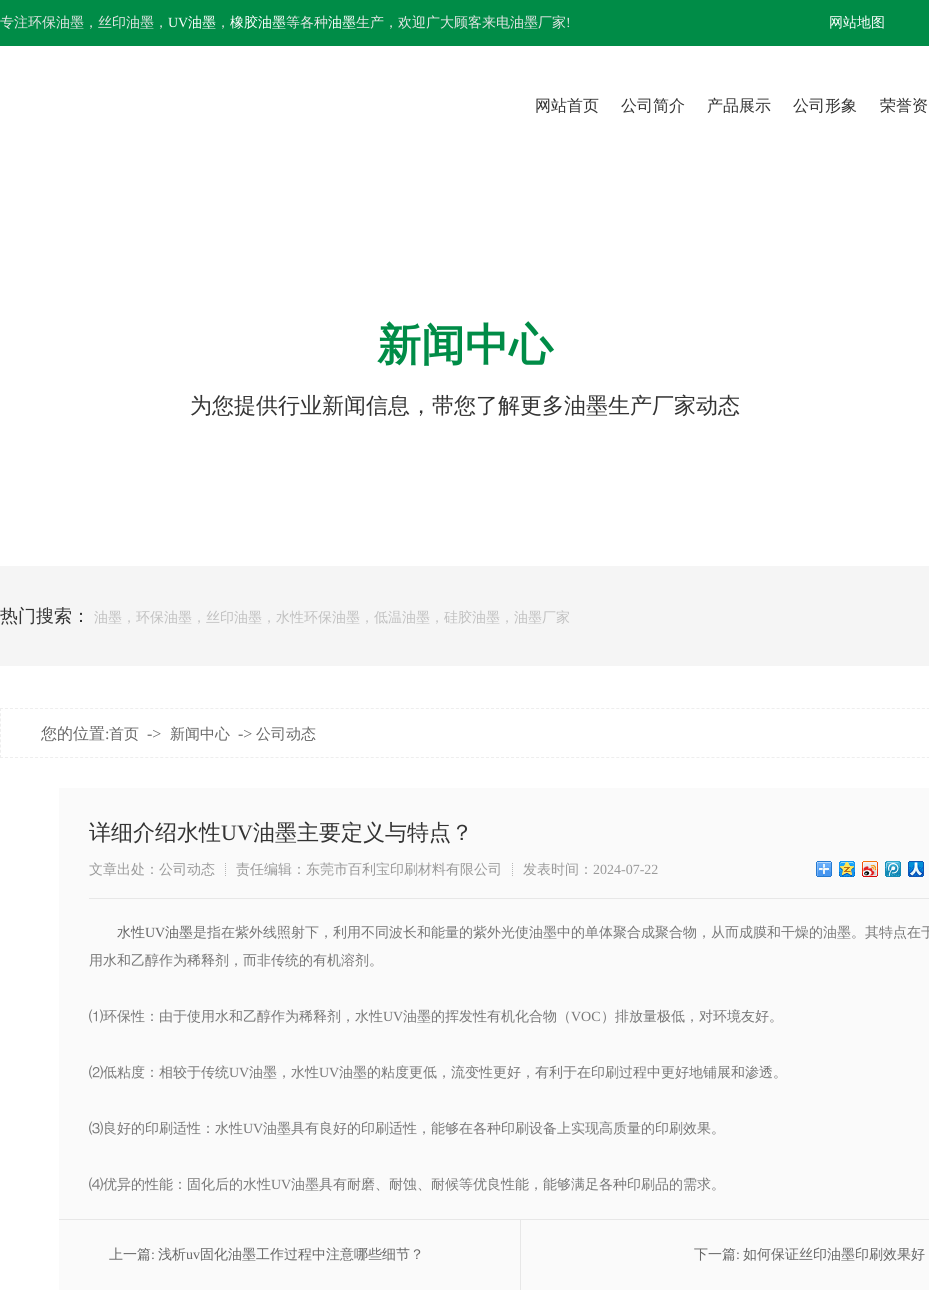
import math
import cairocffi as cairo

surface = cairo.ImageSurface(cairo.FORMAT_RGB24, 929, 1305)
ctx = cairo.Context(surface)
options = cairo.FontOptions()
options.set_hint_metrics(cairo.HINT_METRICS_OFF)
options.set_hint_style(cairo.HINT_STYLE_NONE)
ctx.set_font_options(options)
ctx.set_miter_limit(4)


def rgb(r, g, b):
    ctx.set_source_rgb(r / 255, g / 255, b / 255)


def face(family, size, italic, bold):
    ctx.select_font_face(family, cairo.FONT_SLANT_ITALIC if italic else cairo.FONT_SLANT_NORMAL, cairo.FONT_WEIGHT_BOLD if bold else cairo.FONT_WEIGHT_NORMAL)
    ctx.set_font_size(size)


def label(x, y, s):
    ctx.move_to(x, y)
    ctx.show_text(s)


def rect(x, y, w, h):
    ctx.rectangle(x, y, w, h)
    ctx.fill()


def image(path, x, y, w, h):
    ctx.save()
    ctx.set_source_surface(cairo.ImageSurface.create_from_png(path), x, y)
    ctx.rectangle(x, y, w, h)
    ctx.fill()
    ctx.restore()


rgb(255, 255, 255)
ctx.paint()
rgb(0, 140, 71)
rect(0, 0, 929, 46)
face('WenQuanYi Zen Hei Medium', 14, 0, 0)
rgb(229, 229, 229)
label(0, 27, '专注环保油墨，丝印油墨，')
face('Liberation Serif', 14, 0, 0)
rgb(255, 255, 255)
label(168, 27, 'UV')
face('WenQuanYi Zen Hei Medium', 14, 0, 0)
label(188, 27, '油墨')
rgb(229, 229, 229)
label(216, 27, '，')
rgb(255, 255, 255)
label(230, 27, '橡胶油墨')
rgb(229, 229, 229)
label(286, 27, '等各种')
rgb(255, 255, 255)
label(328, 27, '油墨')
rgb(229, 229, 229)
label(356, 27, '生产，欢迎广大顾客来电油墨厂家')
face('Liberation Serif', 14, 0, 0)
label(566, 27, '!')
face('WenQuanYi Zen Hei Medium', 14, 0, 0)
rgb(255, 255, 255)
label(829, 27, '网站地图')
face('WenQuanYi Zen Hei Medium', 16, 0, 0)
rgb(51, 51, 51)
label(535, 111, '网站首页')
label(621, 111, '公司简介')
label(707, 111, '产品展示')
label(793, 111, '公司形象')
label(880, 111, '荣誉资')
face('WenQuanYi Zen Hei', 44, 0, 1)
rgb(0, 140, 71)
label(377, 360, '新闻中心')
face('WenQuanYi Zen Hei Medium', 22, 0, 0)
rgb(51, 51, 51)
label(190, 413, '为您提供行业新闻信息，带您了解更多油墨生产厂家动态')
rgb(245, 245, 245)
rect(0, 566, 929, 100)
face('WenQuanYi Zen Hei Medium', 18, 0, 0)
rgb(51, 51, 51)
label(0, 622, '热门搜索：')
face('WenQuanYi Zen Hei Medium', 14, 0, 0)
rgb(192, 192, 192)
label(94, 622, '油墨，环保油墨，丝印油墨，水性环保油墨，低温油墨，硅胶油墨，油墨厂家')
ctx.new_path()
ctx.move_to(0, 708.5)
ctx.line_to(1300, 708.5)
rgb(238, 238, 238)
ctx.set_line_width(1)
ctx.set_dash([3, 2.01])
ctx.stroke()
ctx.new_path()
ctx.move_to(0, 757.5)
ctx.line_to(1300, 757.5)
ctx.stroke()
ctx.new_path()
ctx.move_to(0.5, 708)
ctx.line_to(0.5, 758)
ctx.set_dash([3, 2.22])
ctx.stroke()
face('WenQuanYi Zen Hei Medium', 16, 0, 0)
rgb(102, 102, 102)
label(41, 739, '您的位置')
face('Liberation Serif', 16, 0, 0)
label(105, 739, ':')
face('WenQuanYi Zen Hei Medium', 15, 0, 0)
label(109, 739, '首页')
face('Liberation Serif', 16, 0, 0)
label(147, 739, '->')
face('WenQuanYi Zen Hei Medium', 15, 0, 0)
label(170, 739, '新闻中心')
face('Liberation Serif', 16, 0, 0)
label(238, 739, '->')
face('WenQuanYi Zen Hei Medium', 15, 0, 0)
label(256, 739, '公司动态')
rgb(250, 250, 250)
rect(59, 788, 870, 502)
rgb(231, 231, 231)
rect(89, 898, 840, 1)
face('WenQuanYi Zen Hei Medium', 22, 0, 0)
rgb(51, 51, 51)
label(89, 840, '详细介绍水性')
face('Liberation Serif', 22, 0, 0)
label(221, 840, 'UV')
face('WenQuanYi Zen Hei Medium', 22, 0, 0)
label(253, 840, '油墨主要定义与特点？')
face('WenQuanYi Zen Hei Medium', 14, 0, 0)
rgb(153, 153, 153)
label(89, 874, '文章出处：公司动态')
ctx.new_path()
ctx.move_to(225.5, 863)
ctx.line_to(225.5, 877)
rgb(182, 182, 182)
ctx.set_dash([1, 1])
ctx.stroke()
rgb(153, 153, 153)
label(236, 874, '责任编辑：东莞市百利宝印刷材料有限公司')
ctx.new_path()
ctx.move_to(512.5, 863)
ctx.line_to(512.5, 877)
rgb(182, 182, 182)
ctx.stroke()
rgb(153, 153, 153)
label(523, 874, '发表时间：')
face('Liberation Serif', 14, 0, 0)
label(593, 874, '2024-07-22')
image('image0.png', 816, 861, 16, 16)
image('image1.png', 839, 861, 16, 16)
image('image2.png', 862, 861, 16, 16)
image('image3.png', 885, 861, 16, 16)
image('image4.png', 908, 861, 16, 16)
face('WenQuanYi Zen Hei Medium', 14, 0, 0)
rgb(102, 102, 102)
label(117, 937, '水性')
face('Liberation Serif', 14, 0, 0)
label(145, 937, 'UV')
face('WenQuanYi Zen Hei Medium', 14, 0, 0)
label(165, 937, '油墨')
rgb(119, 119, 119)
label(193, 937, '是指在紫外线照射下，利用不同波长和能量的紫外光使油墨中的单体聚合成聚合物，从而成膜和干燥的油墨。其特点在于')
label(89, 965, '用水和乙醇作为稀释剂，而非传统的有机溶剂。')
label(89, 1021, '⑴环保性：由于使用水和乙醇作为稀释剂，水性')
face('Liberation Serif', 14, 0, 0)
label(383, 1021, 'UV')
face('WenQuanYi Zen Hei Medium', 14, 0, 0)
label(403, 1021, '油墨的挥发性有机化合物（')
face('Liberation Serif', 14, 0, 0)
label(571, 1021, 'VOC')
face('WenQuanYi Zen Hei Medium', 14, 0, 0)
label(601, 1021, '）排放量极低，对环境友好。')
label(89, 1077, '⑵低粘度：相较于传统')
face('Liberation Serif', 14, 0, 0)
label(229, 1077, 'UV')
face('WenQuanYi Zen Hei Medium', 14, 0, 0)
label(249, 1077, '油墨，水性')
face('Liberation Serif', 14, 0, 0)
label(319, 1077, 'UV')
face('WenQuanYi Zen Hei Medium', 14, 0, 0)
label(339, 1077, '油墨的粘度更低，流变性更好，有利于在印刷过程中更好地铺展和渗透。')
label(89, 1133, '⑶良好的印刷适性：水性')
face('Liberation Serif', 14, 0, 0)
label(243, 1133, 'UV')
face('WenQuanYi Zen Hei Medium', 14, 0, 0)
label(263, 1133, '油墨具有良好的印刷适性，能够在各种印刷设备上实现高质量的印刷效果。')
label(89, 1189, '⑷优异的性能：固化后的水性')
face('Liberation Serif', 14, 0, 0)
label(271, 1189, 'UV')
face('WenQuanYi Zen Hei Medium', 14, 0, 0)
label(291, 1189, '油墨具有耐磨、耐蚀、耐候等优良性能，能够满足各种印刷品的需求。')
rgb(231, 231, 231)
rect(59, 1219, 870, 1)
rect(520, 1220, 1, 70)
rgb(102, 102, 102)
label(109, 1259, '上一篇')
face('Liberation Serif', 14, 0, 0)
label(151, 1259, ':')
face('WenQuanYi Zen Hei Medium', 14, 0, 0)
label(158, 1259, '浅析')
face('Liberation Serif', 14, 0, 0)
label(186, 1259, 'uv')
face('WenQuanYi Zen Hei Medium', 14, 0, 0)
label(200, 1259, '固化油墨工作过程中注意哪些细节？')
label(694, 1259, '下一篇')
face('Liberation Serif', 14, 0, 0)
label(736, 1259, ':')
face('WenQuanYi Zen Hei Medium', 14, 0, 0)
label(743, 1259, '如何保证丝印油墨印刷效果好')
surface.write_to_png('render.png')
